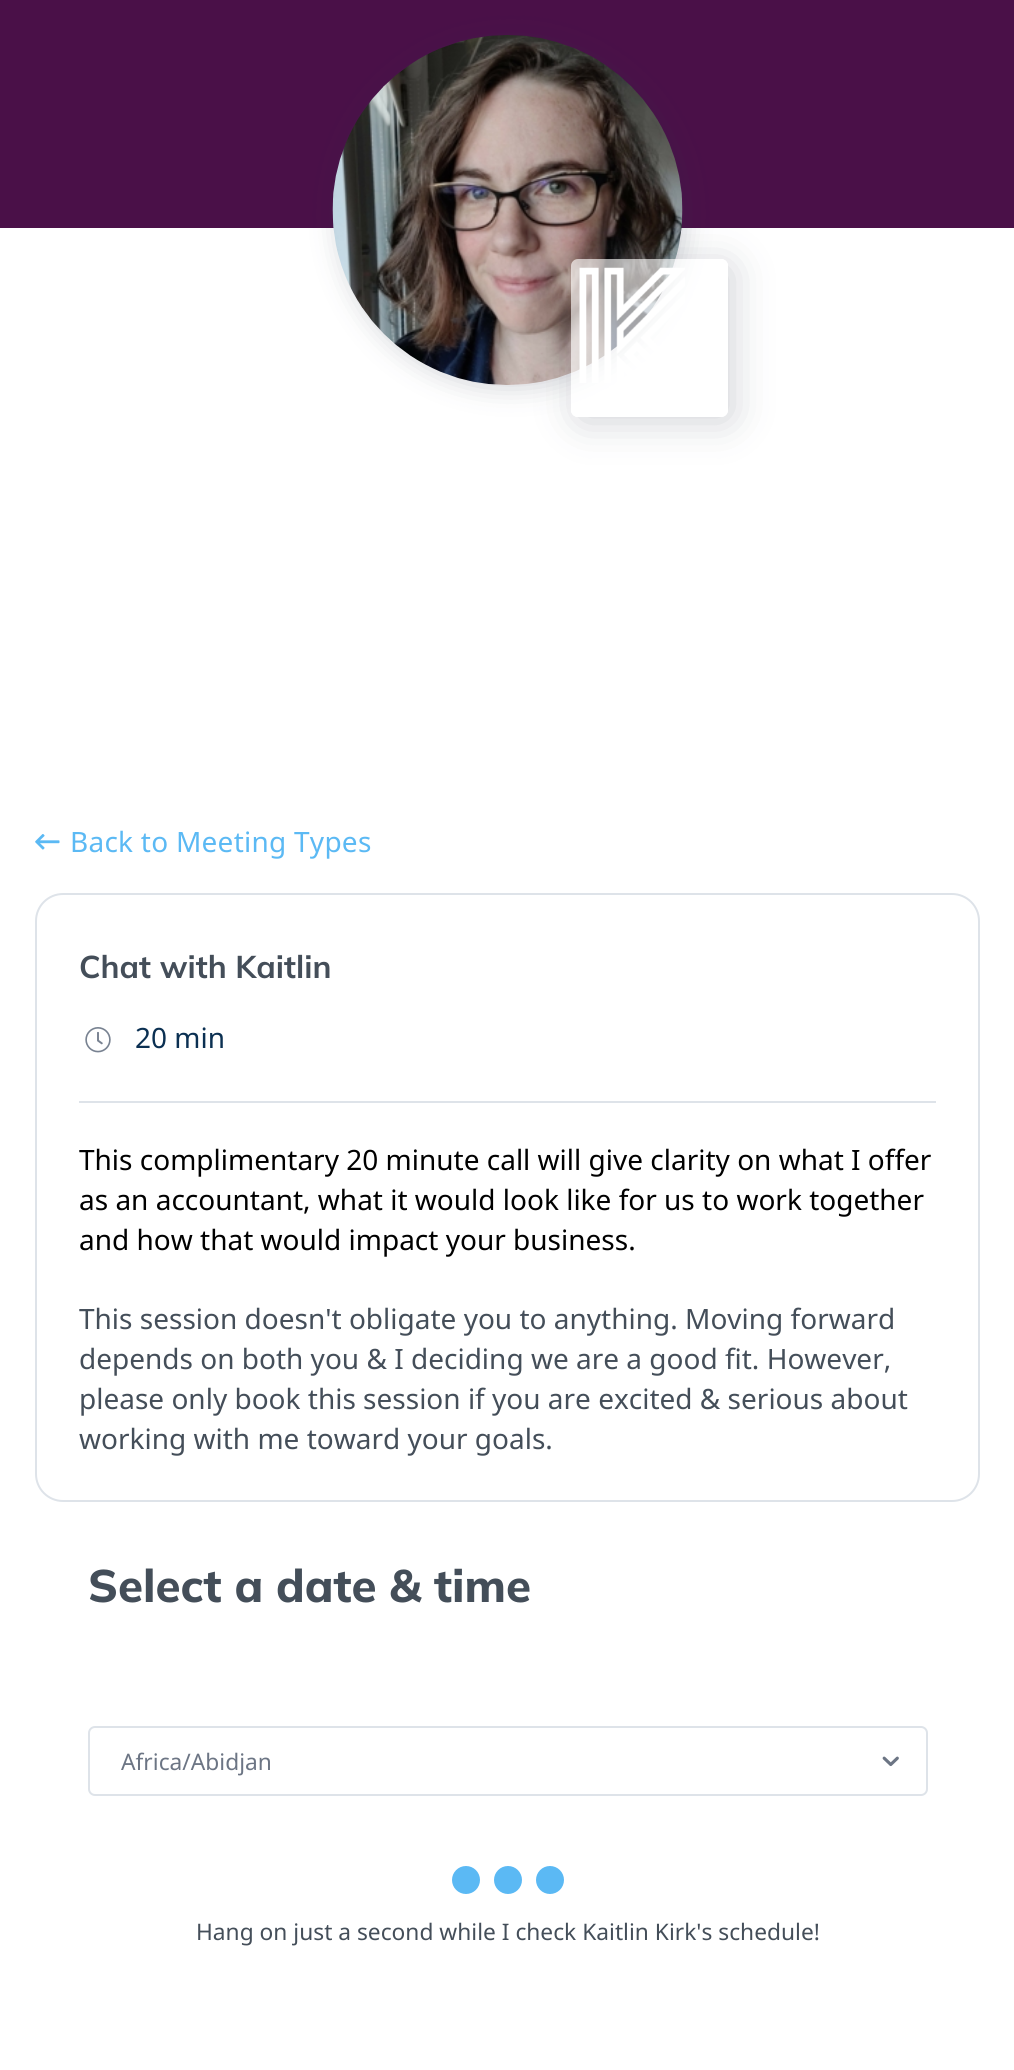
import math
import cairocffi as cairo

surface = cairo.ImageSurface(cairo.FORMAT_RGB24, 1014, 2070)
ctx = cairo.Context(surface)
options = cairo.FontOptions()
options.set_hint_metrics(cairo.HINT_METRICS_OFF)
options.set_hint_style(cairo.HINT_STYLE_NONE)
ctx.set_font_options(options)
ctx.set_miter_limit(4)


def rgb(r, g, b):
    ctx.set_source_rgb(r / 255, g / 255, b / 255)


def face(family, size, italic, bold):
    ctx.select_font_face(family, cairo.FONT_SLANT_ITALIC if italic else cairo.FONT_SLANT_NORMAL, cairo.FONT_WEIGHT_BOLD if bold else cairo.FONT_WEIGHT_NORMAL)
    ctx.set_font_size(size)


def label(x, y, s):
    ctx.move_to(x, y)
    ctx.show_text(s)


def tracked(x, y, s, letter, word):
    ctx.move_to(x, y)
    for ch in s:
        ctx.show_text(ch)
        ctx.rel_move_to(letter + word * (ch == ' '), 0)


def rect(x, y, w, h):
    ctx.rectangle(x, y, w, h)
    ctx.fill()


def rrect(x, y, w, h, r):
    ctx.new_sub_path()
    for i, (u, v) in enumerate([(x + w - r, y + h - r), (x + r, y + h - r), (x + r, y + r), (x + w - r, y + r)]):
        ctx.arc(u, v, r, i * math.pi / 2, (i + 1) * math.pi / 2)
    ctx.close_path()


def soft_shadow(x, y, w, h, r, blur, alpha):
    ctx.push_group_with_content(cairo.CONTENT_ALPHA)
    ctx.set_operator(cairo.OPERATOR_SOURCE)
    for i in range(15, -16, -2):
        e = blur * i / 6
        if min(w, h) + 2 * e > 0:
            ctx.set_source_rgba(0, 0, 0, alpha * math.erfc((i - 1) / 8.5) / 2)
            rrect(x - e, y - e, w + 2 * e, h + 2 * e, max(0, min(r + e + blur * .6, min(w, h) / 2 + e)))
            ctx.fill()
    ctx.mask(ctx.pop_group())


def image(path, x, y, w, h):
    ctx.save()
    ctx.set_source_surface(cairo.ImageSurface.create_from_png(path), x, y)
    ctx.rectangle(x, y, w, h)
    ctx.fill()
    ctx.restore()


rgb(255, 255, 255)
ctx.paint()
rgb(74, 16, 72)
rect(0, 0, 1014, 228)
rgb(45, 51, 72)
soft_shadow(336, 39, 350, 350, 175, 13, 0.2)
image('image0.png', 332, 35, 351, 350)
ctx.save()
ctx.set_fill_rule(cairo.FILL_RULE_EVEN_ODD)
ctx.new_path()
ctx.move_to(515, 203)
ctx.line_to(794, 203)
ctx.line_to(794, 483)
ctx.line_to(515, 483)
ctx.close_path()
ctx.move_to(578, 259)
ctx.line_to(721, 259)
ctx.curve_to(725, 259, 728, 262, 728, 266)
ctx.line_to(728, 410)
ctx.curve_to(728, 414, 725, 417, 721, 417)
ctx.line_to(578, 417)
ctx.curve_to(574, 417, 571, 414, 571, 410)
ctx.line_to(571, 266)
ctx.curve_to(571, 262, 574, 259, 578, 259)
ctx.close_path()
ctx.clip()
soft_shadow(576, 264, 157, 158, 7, 20, 0.22)
ctx.restore()
ctx.set_source_rgba(1, 1, 1, 0.63)
rrect(571, 259, 157, 158, 7)
ctx.fill()
image('image1.png', 579, 267, 106, 116)
image('image2.png', 35, 834, 25, 16)
face('Noto Sans', 28, 0, 0)
rgb(91, 185, 244)
tracked(70, 852, 'Back to Meeting Types', 0.25, 0)
rrect(36, 894, 943, 607, 27)
rgb(222, 227, 233)
ctx.stroke()
face('Mulish', 31.5, 0, 1)
rgb(68, 78, 89)
label(79, 978, 'Chat with Kaitlin')
image('image3.png', 85, 1027, 26, 26)
face('Noto Sans', 28, 0, 0)
rgb(11, 48, 82)
label(135, 1048, '20 min')
rgb(222, 227, 233)
rect(79, 1101, 857, 2)
rgb(0, 0, 0)
label(79, 1170, 'This complimentary 20 minute call will give clarity on what I offer')
label(79, 1210, 'as an accountant, what it would look like for us to work together')
label(79, 1250, 'and how that would impact your business.')
rgb(68, 78, 89)
label(79, 1329, 'This session doesn\'t obligate you to anything. Moving forward')
label(79, 1369, 'depends on both you & I deciding we are a good fit. However,')
label(79, 1409, 'please only book this session if you are excited & serious about')
label(79, 1449, 'working with me toward your goals.')
face('Mulish ExtraBold', 45.5, 0, 0)
label(88, 1602, 'Select a date & time')
rrect(89, 1727, 838, 68, 6)
rgb(222, 227, 233)
ctx.stroke()
face('Noto Sans', 22.75, 0, 0)
rgb(108, 117, 132)
label(121, 1770, 'Africa/Abidjan')
image('image4.png', 882, 1756, 17, 11)
rgb(91, 185, 244)
ctx.arc(466, 1880, 14, 0, 2 * math.pi)
ctx.fill()
ctx.arc(508, 1880, 14, 0, 2 * math.pi)
ctx.fill()
ctx.arc(550, 1880, 14, 0, 2 * math.pi)
ctx.fill()
rgb(68, 78, 89)
label(196, 1940, 'Hang on just a second while I check Kaitlin Kirk\'s schedule!')
surface.write_to_png('render.png')
